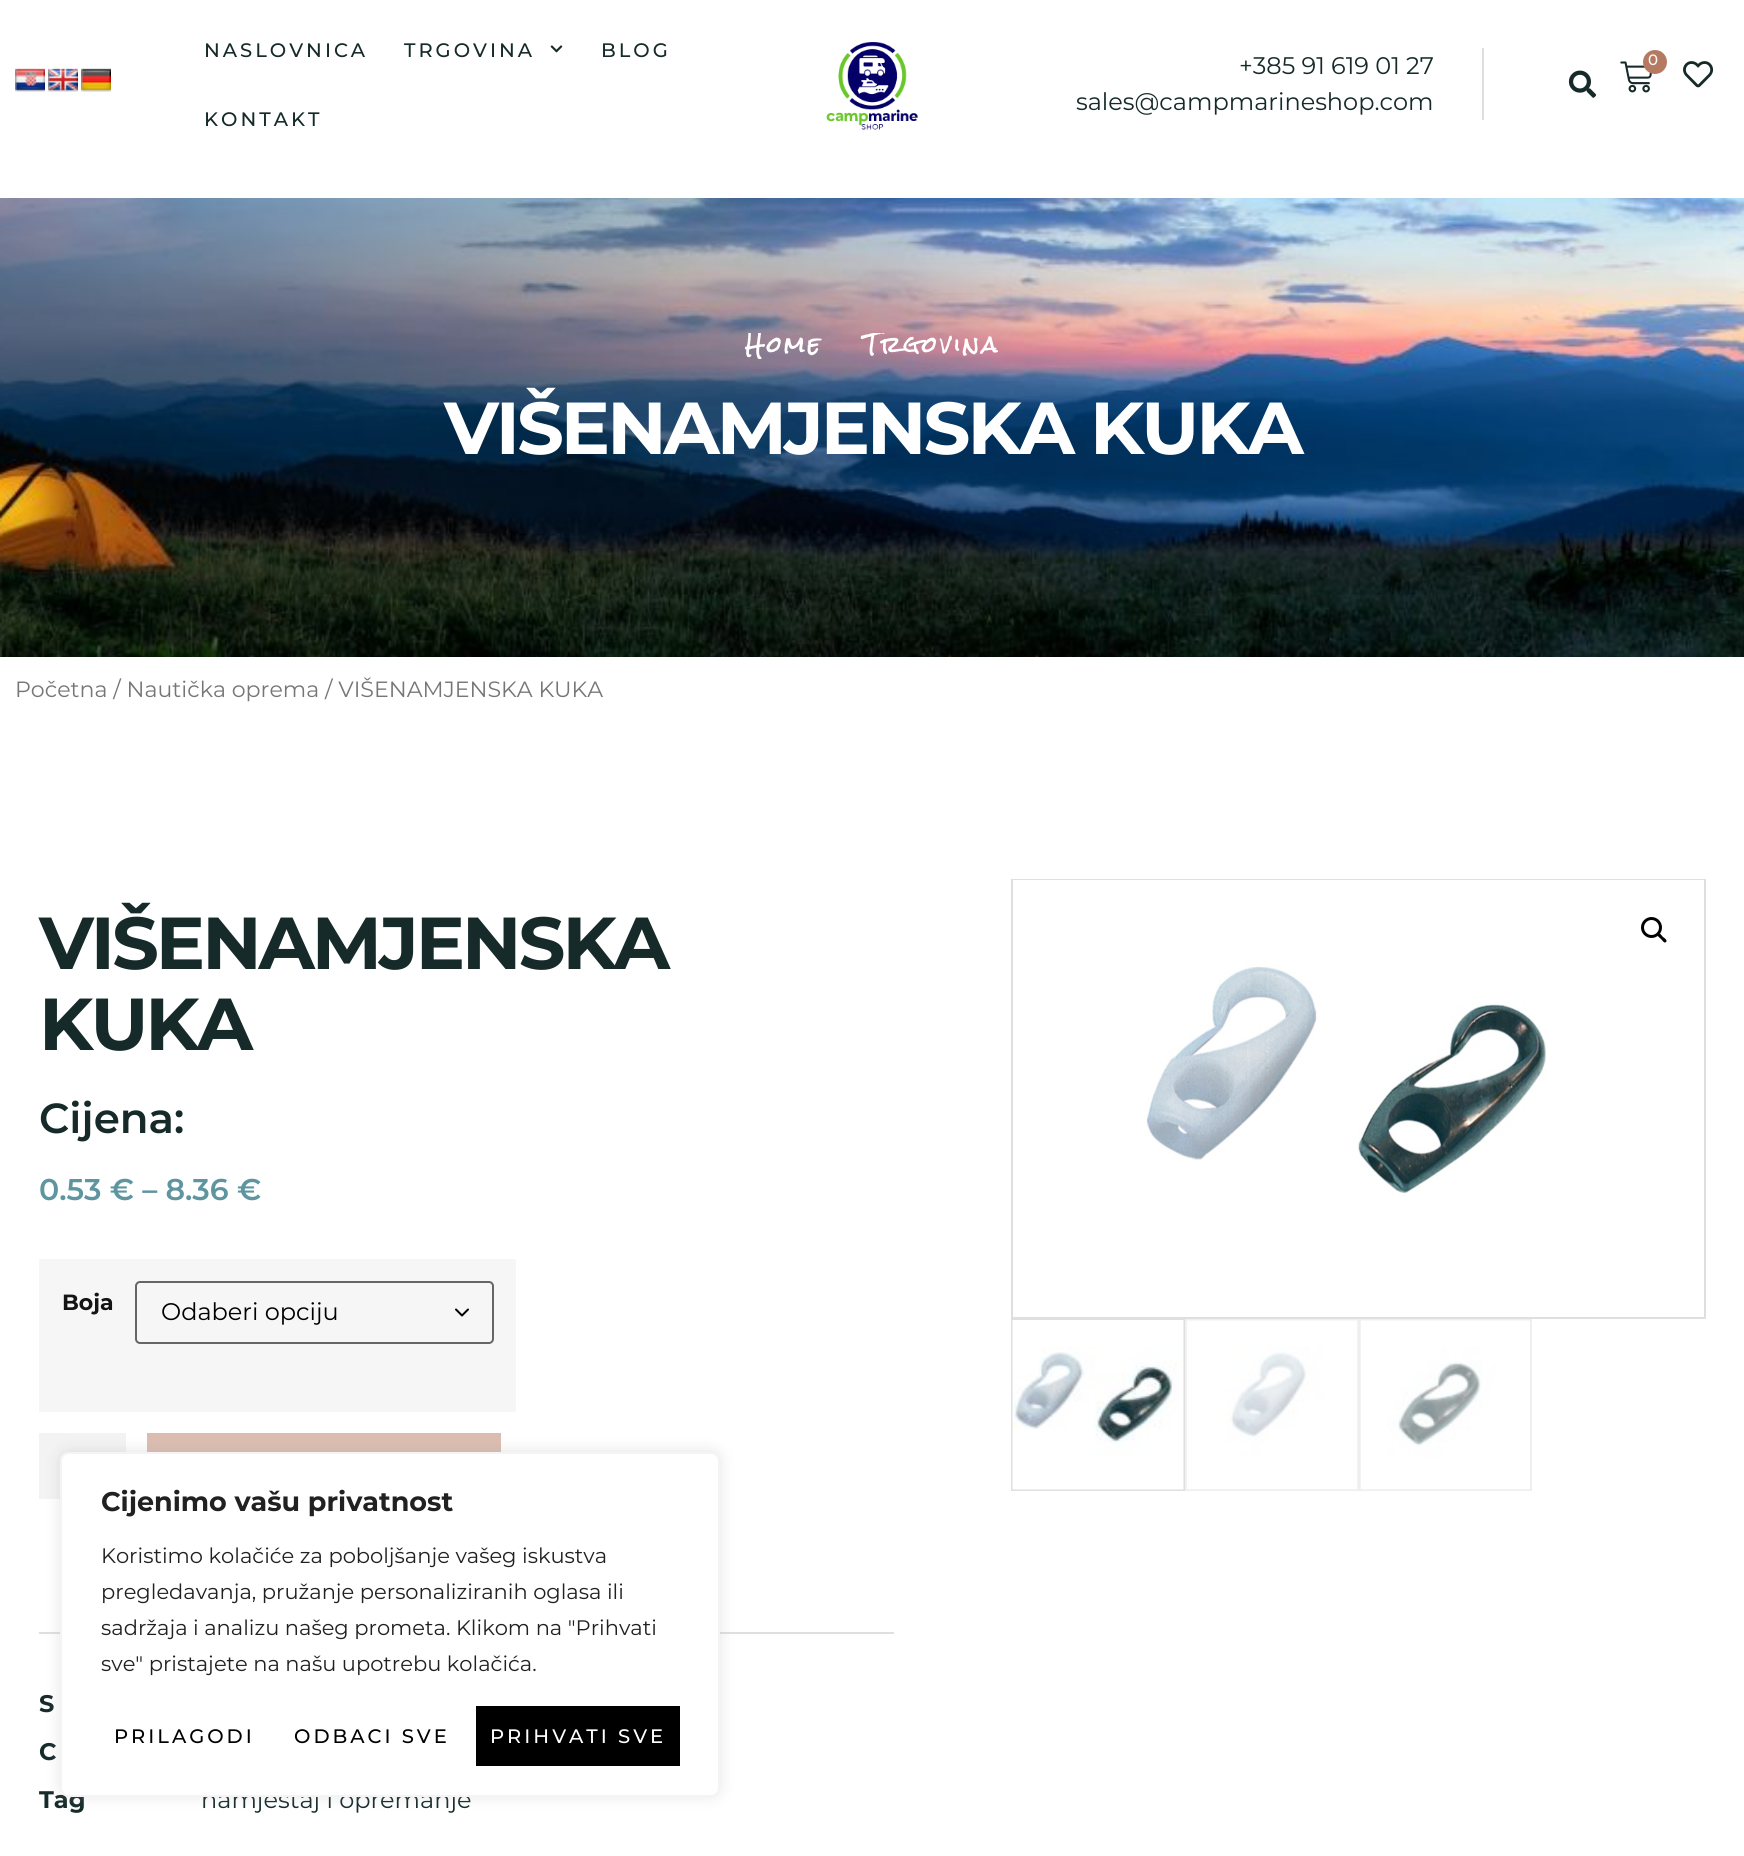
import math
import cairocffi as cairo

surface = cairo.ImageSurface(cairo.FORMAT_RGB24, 1744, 1856)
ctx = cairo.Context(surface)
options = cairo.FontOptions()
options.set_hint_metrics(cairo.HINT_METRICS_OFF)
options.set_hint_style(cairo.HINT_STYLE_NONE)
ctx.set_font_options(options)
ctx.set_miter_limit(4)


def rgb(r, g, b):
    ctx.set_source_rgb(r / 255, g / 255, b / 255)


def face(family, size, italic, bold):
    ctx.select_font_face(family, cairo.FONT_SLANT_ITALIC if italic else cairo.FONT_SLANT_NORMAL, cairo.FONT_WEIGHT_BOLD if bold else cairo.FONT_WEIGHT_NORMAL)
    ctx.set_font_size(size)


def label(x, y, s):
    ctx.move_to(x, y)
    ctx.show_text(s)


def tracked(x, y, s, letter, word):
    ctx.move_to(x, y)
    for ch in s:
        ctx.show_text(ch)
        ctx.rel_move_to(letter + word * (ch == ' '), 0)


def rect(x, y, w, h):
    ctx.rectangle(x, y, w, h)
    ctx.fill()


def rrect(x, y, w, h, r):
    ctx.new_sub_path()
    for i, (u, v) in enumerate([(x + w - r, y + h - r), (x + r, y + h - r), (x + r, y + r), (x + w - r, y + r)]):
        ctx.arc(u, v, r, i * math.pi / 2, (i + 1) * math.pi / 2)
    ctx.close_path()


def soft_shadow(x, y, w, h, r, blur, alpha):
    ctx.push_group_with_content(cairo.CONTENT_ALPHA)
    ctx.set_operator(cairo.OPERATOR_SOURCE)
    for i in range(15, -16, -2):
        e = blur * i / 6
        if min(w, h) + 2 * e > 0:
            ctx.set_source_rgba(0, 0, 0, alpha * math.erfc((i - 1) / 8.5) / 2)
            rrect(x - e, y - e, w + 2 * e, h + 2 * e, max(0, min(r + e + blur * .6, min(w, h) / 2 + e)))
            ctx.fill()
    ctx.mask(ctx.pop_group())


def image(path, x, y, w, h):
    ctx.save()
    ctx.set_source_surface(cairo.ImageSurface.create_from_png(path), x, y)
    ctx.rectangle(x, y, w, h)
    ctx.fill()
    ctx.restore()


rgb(255, 255, 255)
ctx.paint()
image('image0.png', 15, 68, 30, 24)
image('image1.png', 48, 68, 30, 24)
image('image2.png', 81, 68, 30, 24)
face('Montserrat Medium', 19.5, 0, 0)
rgb(21, 42, 41)
tracked(204, 57, 'NASLOVNICA', 3, 0)
tracked(404, 57, 'TRGOVINA', 3, 0)
image('image3.png', 550, 45, 13, 8)
tracked(601, 57, 'BLOG', 3, 0)
tracked(204, 126, 'KONTAKT', 3, 0)
image('image4.png', 826, 42, 92, 88)
rgb(223, 223, 222)
rect(1482, 48, 2, 72)
face('Montserrat', 24, 0, 0)
rgb(21, 42, 41)
label(1239, 74, '+385 91 619 01 27')
label(1076, 110, 'sales@campmarineshop.com')
image('image5.png', 1568, 70, 29, 28)
image('image6.png', 1620, 61, 32, 32)
rgb(182, 121, 97)
ctx.arc(1655, 62, 12, 0, 2 * math.pi)
ctx.fill()
face('Montserrat Medium', 15, 0, 0)
rgb(255, 255, 255)
tracked(1648, 65, '0', 3, 0)
image('image7.png', 1683, 61, 31, 27)
image('image8.png', 0, 198, 1744, 459)
ctx.save()
ctx.rectangle(39, 333, 1667, 26)
ctx.clip()
face('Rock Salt', 21, 0, 1)
tracked(745, 353, 'Home', 3, 0)
tracked(864, 353, 'Trgovina', 3, 0)
ctx.restore()
face('Montserrat', 73.5, 0, 1)
tracked(444, 454, 'VIŠENAMJENSKA KUKA', -3, 0)
face('Montserrat', 22.1, 0, 0)
rgb(118, 118, 118)
label(15, 697, 'Početna / Nautička oprema / VIŠENAMJENSKA KUKA')
face('Montserrat', 73.5, 0, 1)
rgb(21, 42, 41)
tracked(39, 969, 'VIŠENAMJENSKA', -3, 0)
tracked(39, 1050, 'KUKA', -3, 0)
face('Montserrat SemiBold', 42, 0, 0)
label(39, 1133, 'Cijena:')
face('Montserrat SemiBold', 30, 0, 0)
rgb(94, 149, 159)
label(39, 1200, '0.53 € – 8.36 €')
rgb(246, 246, 246)
rect(39, 1259, 477, 153)
face('Montserrat', 22, 0, 1)
rgb(20, 20, 20)
label(62, 1310, 'Boja')
ctx.new_path()
ctx.move_to(456, 1309.5)
ctx.line_to(462, 1315.5)
ctx.line_to(468, 1309.5)
rgb(0, 0, 0)
ctx.set_line_cap(cairo.LINE_CAP_ROUND)
ctx.set_line_join(cairo.LINE_JOIN_ROUND)
ctx.stroke()
rrect(136, 1282, 357, 61, 4)
rgb(102, 102, 102)
ctx.set_line_cap(cairo.LINE_CAP_BUTT)
ctx.set_line_join(cairo.LINE_JOIN_MITER)
ctx.stroke()
face('Montserrat', 24, 0, 0)
rgb(0, 0, 0)
label(161, 1320, 'Odaberi opciju')
rgb(243, 243, 243)
rect(39, 1433, 87, 66)
rgb(219, 188, 176)
rect(147, 1433, 354, 19)
rgb(223, 223, 222)
rect(39, 1632, 855, 2)
face('Montserrat', 24, 0, 1)
rgb(21, 42, 41)
label(39, 1712, 'S')
label(39, 1760, 'C')
label(39, 1808, 'Tag')
face('Montserrat', 24, 0, 0)
label(201, 1808, 'namještaj i opremanje')
ctx.rectangle(1012, 880, 693, 438)
rgb(223, 223, 222)
ctx.stroke()
image('image9.png', 1013, 880, 691, 314)
ctx.arc(1651.5, 927.5, 9, 0, 2 * math.pi)
rgb(0, 0, 0)
ctx.set_line_width(3)
ctx.stroke()
ctx.new_path()
ctx.move_to(1658, 933.5)
ctx.curve_to(1659.5, 932, 1662, 936, 1663, 937)
ctx.curve_to(1664, 937.5, 1668, 940.5, 1666, 942)
ctx.curve_to(1664.5, 944, 1662, 940, 1661, 939)
ctx.curve_to(1660, 938, 1656, 935.5, 1658, 933.5)
ctx.close_path()
ctx.fill()
ctx.rectangle(1012, 1320, 172, 170)
rgb(223, 223, 222)
ctx.set_line_width(2)
ctx.stroke()
image('image10.png', 1012, 1320, 172, 170)
ctx.rectangle(1186, 1320, 172, 170)
rgb(239, 239, 239)
ctx.stroke()
image('image11.png', 1186, 1320, 172, 170)
ctx.rectangle(1360, 1320, 171, 170)
ctx.stroke()
image('image12.png', 1360, 1320, 170, 170)
rgb(172, 171, 171)
soft_shadow(60, 1451, 660, 345, 9, 7.5, 0.3)
rgb(255, 255, 255)
rrect(61, 1453, 658, 343, 8)
ctx.fill_preserve()
rgb(244, 244, 244)
ctx.stroke()
face('Montserrat', 27, 0, 1)
rgb(33, 33, 33)
label(101, 1511, 'Cijenimo vašu privatnost')
face('Montserrat', 21, 0, 0)
label(101, 1563, 'Koristimo kolačiće za poboljšanje vašeg iskustva')
label(101, 1599, 'pregledavanja, pružanje personaliziranih oglasa ili')
label(101, 1635, 'sadržaja i analizu našeg prometa. Klikom na "Prihvati')
label(101, 1671, 'sve" pristajete na našu upotrebu kolačića.')
face('Montserrat Medium', 19.5, 0, 0)
rgb(0, 0, 0)
tracked(114, 1743, 'PRILAGODI', 3, 0)
tracked(294, 1743, 'ODBACI SVE', 3, 0)
rect(476, 1706, 204, 60)
rgb(255, 255, 255)
tracked(490, 1743, 'PRIHVATI SVE', 3, 0)
surface.write_to_png('render.png')
